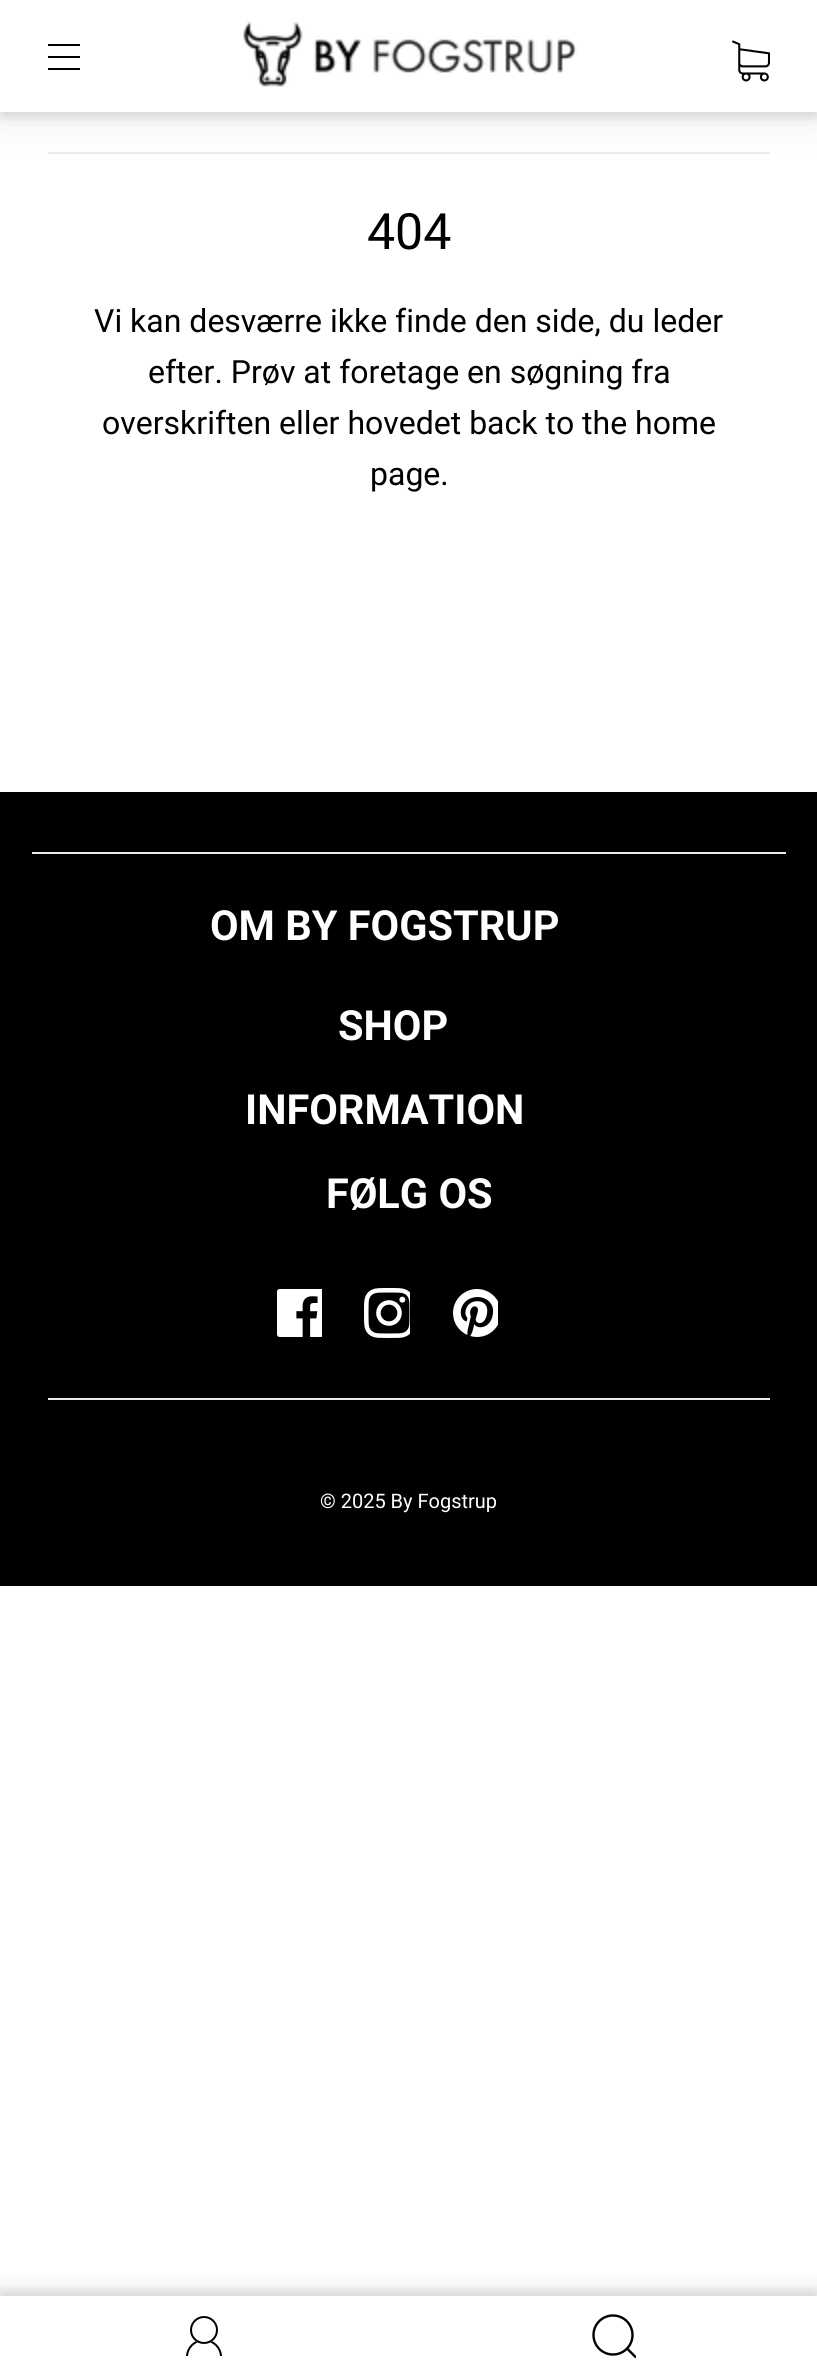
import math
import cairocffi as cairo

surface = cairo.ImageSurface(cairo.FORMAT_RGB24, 817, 2375)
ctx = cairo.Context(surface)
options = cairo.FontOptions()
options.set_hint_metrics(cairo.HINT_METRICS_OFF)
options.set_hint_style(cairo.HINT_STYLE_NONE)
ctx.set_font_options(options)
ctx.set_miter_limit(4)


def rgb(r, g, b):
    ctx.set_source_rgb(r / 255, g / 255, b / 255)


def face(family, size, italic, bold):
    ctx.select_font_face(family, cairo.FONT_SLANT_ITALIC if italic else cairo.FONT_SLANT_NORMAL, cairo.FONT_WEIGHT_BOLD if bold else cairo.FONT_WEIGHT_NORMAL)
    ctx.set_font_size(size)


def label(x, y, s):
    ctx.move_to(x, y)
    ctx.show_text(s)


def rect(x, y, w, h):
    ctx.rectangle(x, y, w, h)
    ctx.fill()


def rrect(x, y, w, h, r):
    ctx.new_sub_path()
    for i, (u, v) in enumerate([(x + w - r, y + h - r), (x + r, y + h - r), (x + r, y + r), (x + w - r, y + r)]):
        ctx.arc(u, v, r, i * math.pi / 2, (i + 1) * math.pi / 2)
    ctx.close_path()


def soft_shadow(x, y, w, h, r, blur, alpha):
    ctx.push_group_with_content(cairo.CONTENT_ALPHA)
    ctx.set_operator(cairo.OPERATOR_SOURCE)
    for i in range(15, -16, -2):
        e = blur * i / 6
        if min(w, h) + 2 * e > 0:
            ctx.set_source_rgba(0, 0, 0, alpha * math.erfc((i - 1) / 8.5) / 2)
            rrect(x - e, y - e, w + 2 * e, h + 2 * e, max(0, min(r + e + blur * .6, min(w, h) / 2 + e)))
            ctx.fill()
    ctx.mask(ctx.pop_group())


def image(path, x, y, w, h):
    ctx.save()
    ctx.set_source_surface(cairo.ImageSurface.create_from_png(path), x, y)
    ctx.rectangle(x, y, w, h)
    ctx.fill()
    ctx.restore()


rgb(255, 255, 255)
ctx.paint()
rgb(235, 235, 235)
rect(48, 152, 722, 2)
rgb(0, 0, 0)
soft_shadow(0, 12, 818, 112, 0, 20, 0.06)
soft_shadow(0, 6, 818, 112, 0, 5, 0.12)
rgb(255, 255, 255)
rect(0, 0, 817, 112)
rgb(0, 0, 0)
rect(48, 44, 32, 2)
rect(48, 56, 32, 2)
rect(48, 68, 32, 2)
image('image0.png', 243, 21, 334, 66)
image('image1.png', 732, 40, 38, 42)
face('Roboto', 50, 0, 0)
label(367, 249, '404')
face('Roboto', 32, 0, 0)
label(94, 332, 'Vi kan desværre ikke finde den side, du leder')
label(148, 383, 'efter. Prøv at foretage en søgning fra')
label(102, 434, 'overskriften eller hovedet back to the home')
label(370, 485, 'page.')
rect(0, 792, 817, 794)
rgb(235, 235, 235)
rect(32, 852, 754, 2)
face('Roboto', 41.5, 0, 1)
rgb(255, 255, 255)
label(210, 940, 'OM BY FOGSTRUP')
label(338, 1040, 'SHOP')
label(245, 1124, 'INFORMATION')
label(326, 1208, 'FØLG OS')
image('image2.png', 277, 1289, 45, 48)
image('image3.png', 364, 1288, 46, 50)
image('image4.png', 453, 1289, 45, 48)
rgb(235, 235, 235)
rect(48, 1398, 722, 2)
face('Roboto', 20, 0, 0)
rgb(255, 255, 255)
label(320, 1508, '© 2025 By Fogstrup')
ctx.save()
ctx.rectangle(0, 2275, 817, 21)
ctx.clip()
rgb(0, 0, 0)
soft_shadow(0, 2284, 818, 80, 0, 20, 0.06)
ctx.restore()
ctx.save()
ctx.rectangle(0, 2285, 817, 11)
ctx.clip()
rgb(0, 0, 0)
soft_shadow(0, 2290, 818, 80, 0, 5, 0.12)
ctx.restore()
image('image5.png', 186, 2316, 36, 40)
ctx.arc(613, 2335, 19.5, 0, 2 * math.pi)
rgb(0, 0, 0)
ctx.set_line_width(2.4)
ctx.stroke()
ctx.save()
ctx.rectangle(592, 2314, 44, 44)
ctx.clip()
ctx.new_path()
ctx.move_to(626.5, 2348)
ctx.line_to(640.5, 2362)
ctx.stroke()
ctx.restore()
surface.write_to_png('render.png')
